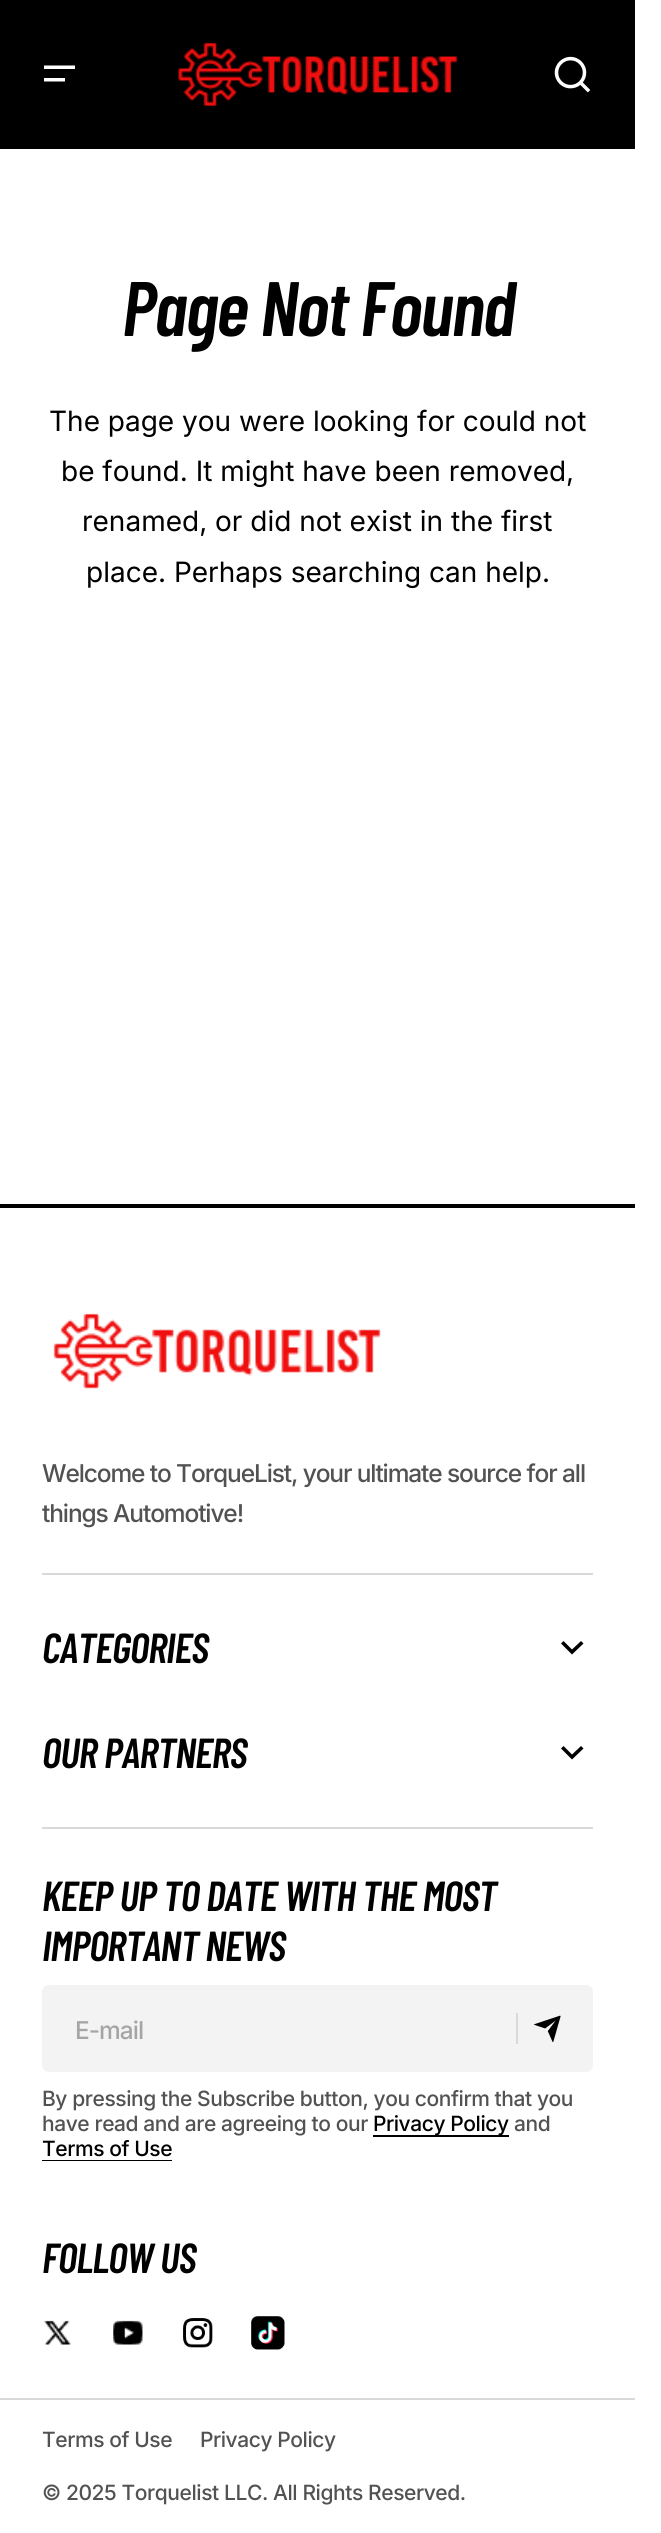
import math
import cairocffi as cairo

surface = cairo.ImageSurface(cairo.FORMAT_RGB24, 661, 2533)
ctx = cairo.Context(surface)
options = cairo.FontOptions()
options.set_hint_metrics(cairo.HINT_METRICS_OFF)
options.set_hint_style(cairo.HINT_STYLE_NONE)
ctx.set_font_options(options)
ctx.set_miter_limit(4)


def rgb(r, g, b):
    ctx.set_source_rgb(r / 255, g / 255, b / 255)


def face(family, size, italic, bold):
    ctx.select_font_face(family, cairo.FONT_SLANT_ITALIC if italic else cairo.FONT_SLANT_NORMAL, cairo.FONT_WEIGHT_BOLD if bold else cairo.FONT_WEIGHT_NORMAL)
    ctx.set_font_size(size)


def label(x, y, s):
    ctx.move_to(x, y)
    ctx.show_text(s)


def tracked(x, y, s, letter, word):
    ctx.move_to(x, y)
    for ch in s:
        ctx.show_text(ch)
        ctx.rel_move_to(letter + word * (ch == ' '), 0)


def rect(x, y, w, h):
    ctx.rectangle(x, y, w, h)
    ctx.fill()


def rrect(x, y, w, h, r):
    ctx.new_sub_path()
    for i, (u, v) in enumerate([(x + w - r, y + h - r), (x + r, y + h - r), (x + r, y + r), (x + w - r, y + r)]):
        ctx.arc(u, v, r, i * math.pi / 2, (i + 1) * math.pi / 2)
    ctx.close_path()


def image(path, x, y, w, h):
    ctx.save()
    ctx.set_source_surface(cairo.ImageSurface.create_from_png(path), x, y)
    ctx.rectangle(x, y, w, h)
    ctx.fill()
    ctx.restore()


rgb(255, 255, 255)
ctx.paint()
rgb(0, 0, 0)
rect(0, 0, 635, 149)
rgb(255, 255, 255)
ctx.new_path()
ctx.move_to(44, 65.5)
ctx.line_to(75, 65.5)
ctx.line_to(75, 69)
ctx.line_to(44, 69)
ctx.close_path()
ctx.move_to(44, 78)
ctx.line_to(65, 78)
ctx.line_to(65, 81.5)
ctx.line_to(44, 81.5)
ctx.close_path()
ctx.fill()
image('image0.png', 178, 42, 280, 64)
image('image1.png', 554, 56, 37, 37)
face('Barlow Condensed SemiBold', 77, 1, 0)
rgb(0, 0, 0)
tracked(122, 336, 'Page Not Found', -1.5, 0)
face('Inter', 28, 0, 0)
label(49, 431, 'The page you were looking for could not')
label(61, 481, 'be found. It might have been removed,')
label(82, 531, 'renamed, or did not exist in the first')
label(86, 582, 'place. Perhaps searching can help.')
rect(0, 1204, 635, 4)
image('image2.png', 53, 1313, 328, 76)
face('Inter Medium', 24.5, 0, 0)
rgb(82, 82, 82)
tracked(42, 1482, 'Welcome to TorqueList, your ultimate source for all', -1.12, 0)
tracked(42, 1522, 'things Automotive!', -1.12, 0)
rgb(217, 217, 217)
rect(42, 1573, 551, 2)
rect(42, 1827, 551, 2)
face('Barlow Condensed SemiBold', 42, 1, 0)
rgb(0, 0, 0)
tracked(42, 1663, 'CATEGORIES', -0.85, 0)
ctx.new_path()
ctx.move_to(572, 1649.5)
ctx.line_to(581, 1641)
ctx.line_to(583.5, 1643.5)
ctx.line_to(572, 1654.5)
ctx.line_to(561, 1643.5)
ctx.line_to(563.5, 1641)
ctx.close_path()
ctx.fill()
tracked(42, 1768, 'OUR PARTNERS', -0.85, 0)
ctx.new_path()
ctx.move_to(572, 1754.5)
ctx.line_to(581, 1746)
ctx.line_to(583.5, 1748.5)
ctx.line_to(572, 1759.5)
ctx.line_to(561, 1748.5)
ctx.line_to(563.5, 1746)
ctx.close_path()
ctx.fill()
tracked(42, 1911, 'KEEP UP TO DATE WITH THE MOST', -0.85, 0)
tracked(42, 1961, 'IMPORTANT NEWS', -0.85, 0)
rgb(243, 243, 243)
rrect(42, 1985, 551, 87, 7)
ctx.fill()
face('Inter Medium', 24.5, 0, 0)
rgb(165, 165, 165)
tracked(75, 2039, 'E-mail', -1, 0)
rgb(217, 217, 217)
rect(516, 2013, 2, 31)
image('image3.png', 534, 2015, 27, 28)
face('Inter Medium', 21, 0, 0)
rgb(82, 82, 82)
tracked(42, 2106, 'By pressing the Subscribe button, you confirm that you', -0.42, 0)
tracked(42, 2131, 'have read and are agreeing to our', -0.42, 0)
rgb(0, 0, 0)
rect(373, 2135, 136, 2)
tracked(373, 2131, 'Privacy Policy', -0.42, 0)
rgb(82, 82, 82)
tracked(514, 2131, 'and', -0.42, 0)
rgb(0, 0, 0)
tracked(42, 2156, 'Terms of Use', -0.42, 0)
rect(42, 2160, 130, 1)
face('Barlow Condensed SemiBold', 42, 1, 0)
tracked(42, 2273, 'FOLLOW US', -0.85, 0)
image('image4.png', 44, 2320, 28, 25)
image('image5.png', 113, 2320, 30, 25)
image('image6.png', 183, 2318, 30, 30)
image('image7.png', 251, 2316, 34, 34)
rgb(217, 217, 217)
rect(0, 2398, 635, 2)
face('Inter Medium', 21, 0, 0)
rgb(82, 82, 82)
tracked(42, 2447, 'Terms of Use', -0.42, 0)
tracked(200, 2447, 'Privacy Policy', -0.42, 0)
tracked(42, 2500, '© 2025 Torquelist LLC. All Rights Reserved.', -0.42, 0)
surface.write_to_png('render.png')
